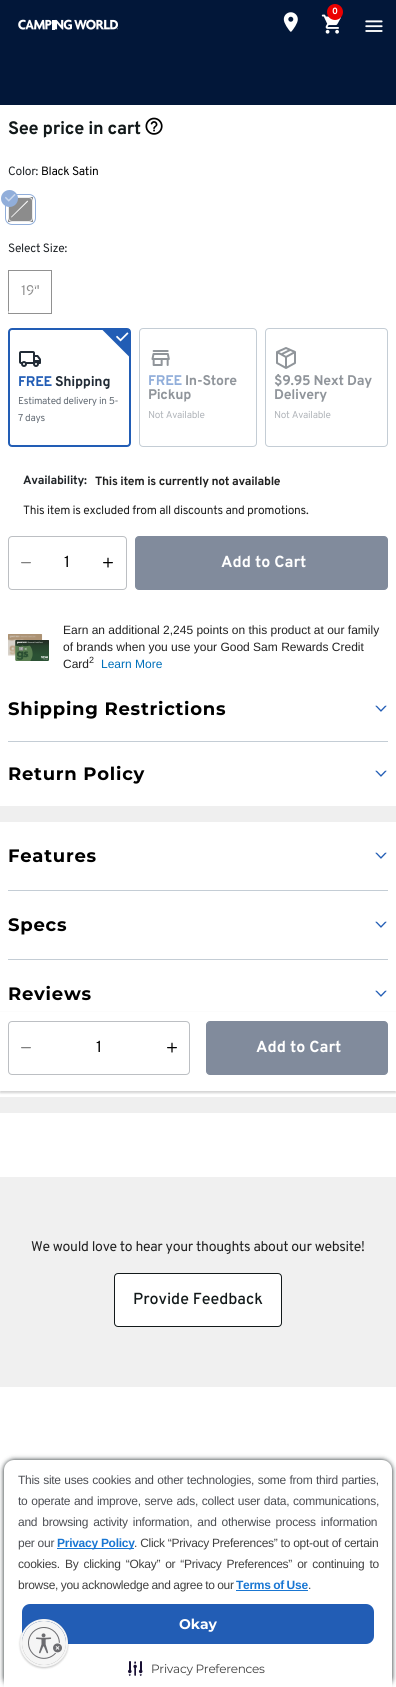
import math
import cairocffi as cairo

surface = cairo.ImageSurface(cairo.FORMAT_RGB24, 396, 1687)
ctx = cairo.Context(surface)
options = cairo.FontOptions()
options.set_hint_metrics(cairo.HINT_METRICS_OFF)
options.set_hint_style(cairo.HINT_STYLE_NONE)
ctx.set_font_options(options)
ctx.set_miter_limit(4)


def rgb(r, g, b):
    ctx.set_source_rgb(r / 255, g / 255, b / 255)


def face(family, size, italic, bold):
    ctx.select_font_face(family, cairo.FONT_SLANT_ITALIC if italic else cairo.FONT_SLANT_NORMAL, cairo.FONT_WEIGHT_BOLD if bold else cairo.FONT_WEIGHT_NORMAL)
    ctx.set_font_size(size)


def label(x, y, s):
    ctx.move_to(x, y)
    ctx.show_text(s)


def tracked(x, y, s, letter, word):
    ctx.move_to(x, y)
    for ch in s:
        ctx.show_text(ch)
        ctx.rel_move_to(letter + word * (ch == ' '), 0)


def rect(x, y, w, h):
    ctx.rectangle(x, y, w, h)
    ctx.fill()


def rrect(x, y, w, h, r):
    ctx.new_sub_path()
    for i, (u, v) in enumerate([(x + w - r, y + h - r), (x + r, y + h - r), (x + r, y + r), (x + w - r, y + r)]):
        ctx.arc(u, v, r, i * math.pi / 2, (i + 1) * math.pi / 2)
    ctx.close_path()


def soft_shadow(x, y, w, h, r, blur, alpha):
    ctx.push_group_with_content(cairo.CONTENT_ALPHA)
    ctx.set_operator(cairo.OPERATOR_SOURCE)
    for i in range(15, -16, -2):
        e = blur * i / 6
        if min(w, h) + 2 * e > 0:
            ctx.set_source_rgba(0, 0, 0, alpha * math.erfc((i - 1) / 8.5) / 2)
            rrect(x - e, y - e, w + 2 * e, h + 2 * e, max(0, min(r + e + blur * .6, min(w, h) / 2 + e)))
            ctx.fill()
    ctx.mask(ctx.pop_group())


def image(path, x, y, w, h):
    ctx.save()
    ctx.set_source_surface(cairo.ImageSurface.create_from_png(path), x, y)
    ctx.rectangle(x, y, w, h)
    ctx.fill()
    ctx.restore()


rgb(255, 255, 255)
ctx.paint()
rgb(2, 23, 57)
rect(0, 0, 396, 105)
image('image0.png', 321, 14, 20, 20)
rgb(235, 0, 0)
ctx.arc(335, 12, 8, 0, 2 * math.pi)
ctx.fill()
face('Overpass', 9, 0, 1)
rgb(255, 255, 255)
tracked(332, 14, '0', -0.27, 0)
image('image1.png', 283, 12, 15, 20)
image('image2.png', 365, 20, 18, 12)
image('image3.png', 18, 19, 100, 11)
face('Overpass', 18, 0, 1)
rgb(18, 25, 26)
tracked(8, 134, 'See price in cart', -0.27, 0)
image('image4.png', 145, 117, 18, 18)
face('Overpass', 12, 0, 0)
rgb(33, 37, 41)
tracked(8, 175, 'Color:', -0.27, 0)
rgb(0, 0, 0)
tracked(41, 175, 'Black Satin', -0.27, 0)
rrect(6.5, 195.5, 28, 28, 5.5)
rgb(145, 174, 218)
ctx.set_line_width(3)
ctx.stroke()
rrect(7, 196, 27, 27, 5)
rgb(255, 255, 255)
ctx.set_line_width(2)
ctx.stroke()
rrect(8, 197, 25, 25, 4)
ctx.fill()
ctx.set_source_rgba(0.102, 0.102, 0.102, 0.5)
rect(8, 197, 25, 25)
rrect(8.5, 197.5, 24, 24, 3.5)
rgb(236, 236, 236)
ctx.set_line_width(1)
ctx.stroke()
rgb(255, 255, 255)
ctx.new_path()
ctx.move_to(27.5, 200.5)
ctx.line_to(28, 201.5)
ctx.line_to(11.5, 217.5)
ctx.line_to(11, 217)
ctx.close_path()
ctx.fill()
rgb(145, 174, 218)
ctx.arc(9.5, 198.5, 8.5, 0, 2 * math.pi)
ctx.fill()
image('image5.png', 5, 194, 11, 8)
rgb(33, 37, 41)
tracked(8, 252, 'Select Size:', -0.27, 0)
ctx.rectangle(8.5, 270.5, 43, 43)
rgb(145, 145, 145)
ctx.stroke()
face('Overpass', 14, 0, 0)
tracked(21, 295, '19"', -0.27, 0)
rgb(255, 255, 255)
ctx.new_path()
ctx.move_to(49, 272)
ctx.line_to(50, 272)
ctx.line_to(9, 313)
ctx.line_to(8, 312)
ctx.close_path()
ctx.fill()
rrect(9, 329, 121, 117, 3)
rgb(34, 93, 181)
ctx.set_line_width(2)
ctx.stroke()
ctx.new_path()
ctx.move_to(102, 329.5)
ctx.line_to(102, 329)
ctx.line_to(129.5, 329)
ctx.line_to(129.5, 357)
ctx.close_path()
ctx.fill()
image('image6.png', 116, 332, 13, 10)
image('image7.png', 19, 351, 22, 16)
face('Overpass', 14, 0, 1)
tracked(18, 386, 'FREE', -0.27, 0)
rgb(33, 43, 54)
tracked(55, 386, 'Shipping', -0.27, 0)
face('Overpass', 10, 0, 0)
rgb(101, 109, 118)
tracked(18, 404, 'Estimated delivery in 5-', -0.27, 0)
tracked(18, 421, '7 days', -0.27, 0)
rrect(139.5, 328.5, 117, 118, 3.5)
rgb(196, 205, 213)
ctx.set_line_width(1)
ctx.stroke()
image('image8.png', 151, 350, 19, 16)
face('Overpass', 14, 0, 1)
rgb(145, 174, 218)
tracked(148, 385, 'FREE', -0.27, 0)
rgb(144, 149, 155)
tracked(185, 385, 'In-Store', -0.27, 0)
tracked(148, 399, 'Pickup', -0.27, 0)
face('Overpass', 10, 0, 0)
rgb(178, 182, 187)
tracked(148, 418, 'Not Available', -0.27, 0)
rrect(265.5, 328.5, 122, 118, 3.5)
rgb(196, 205, 213)
ctx.stroke()
image('image9.png', 276, 347, 20, 22)
face('Overpass', 14, 0, 1)
rgb(144, 149, 155)
tracked(274, 385, '$9.95 Next Day', -0.27, 0)
tracked(274, 399, 'Delivery', -0.27, 0)
face('Overpass', 10, 0, 0)
rgb(178, 182, 187)
tracked(274, 418, 'Not Available', -0.27, 0)
face('Overpass', 12, 0, 1)
rgb(33, 37, 41)
tracked(23, 484, 'Availability:', -0.27, 0)
rgb(34, 34, 34)
tracked(95, 485, 'This item is currently not available', -0.27, 0)
face('Overpass', 12, 0, 0)
tracked(23, 514, 'This item is excluded from all discounts and promotions.', -0.27, 0)
rrect(8.5, 536.5, 118, 53, 3.5)
rgb(188, 191, 195)
ctx.stroke()
image('image10.png', 21, 562, 10, 2)
face('Overpass', 16, 0, 0)
rgb(0, 0, 0)
label(64, 567, '1')
image('image11.png', 103, 557, 10, 11)
rgb(129, 139, 156)
rrect(135.5, 536.5, 252, 53, 3.5)
ctx.fill_preserve()
ctx.stroke()
face('Overpass', 16, 0, 1)
rgb(255, 255, 255)
label(221, 567, 'Add to Cart')
rgb(34, 34, 34)
soft_shadow(0, 1013, 396, 80, 0, 1, 0.2)
rgb(255, 255, 255)
rect(0, 1012, 396, 79)
rrect(8.5, 1021.5, 181, 53, 3.5)
rgb(188, 191, 195)
ctx.stroke()
image('image10.png', 21, 1047, 10, 2)
face('Overpass', 16, 0, 0)
rgb(0, 0, 0)
label(96, 1052, '1')
image('image11.png', 167, 1042, 10, 11)
rgb(129, 139, 156)
rrect(206.5, 1021.5, 181, 53, 3.5)
ctx.fill_preserve()
ctx.stroke()
face('Overpass', 16, 0, 1)
rgb(255, 255, 255)
label(256, 1052, 'Add to Cart')
image('image12.png', 8, 634, 41, 27)
face('Liberation Sans', 12, 0, 0)
rgb(34, 34, 34)
label(63, 634, 'Earn an additional 2,245 points on this product at our family')
label(63, 651, 'of brands when you use your Good Sam Rewards Credit')
label(63, 668, 'Card')
face('Liberation Sans', 9, 0, 0)
label(89, 663, '2')
face('Liberation Sans', 12, 0, 0)
rgb(0, 112, 186)
label(101, 668, 'Learn More')
rgb(196, 205, 213)
rect(8, 741, 380, 1)
face('Montserrat', 18, 0, 1)
rgb(0, 0, 0)
tracked(8, 715, 'Shipping Restrictions', 0.75, 0)
image('image13.png', 375, 705, 12, 7)
tracked(8, 780, 'Return Policy', 0.75, 0)
image('image13.png', 375, 770, 12, 7)
rgb(239, 239, 239)
rect(0, 806, 396, 16)
rgb(196, 205, 213)
rect(8, 890, 380, 1)
rgb(0, 0, 0)
tracked(8, 862, 'Features', 0.75, 0)
image('image13.png', 375, 852, 12, 7)
rgb(196, 205, 213)
rect(8, 959, 380, 1)
rgb(0, 0, 0)
tracked(8, 931, 'Specs', 0.75, 0)
image('image13.png', 375, 921, 12, 7)
rgb(239, 239, 239)
rect(0, 1097, 396, 16)
rgb(0, 0, 0)
tracked(8, 1000, 'Reviews', 0.75, 0)
image('image13.png', 375, 990, 12, 7)
rgb(240, 240, 240)
rect(0, 1177, 396, 210)
face('Overpass', 14, 0, 0)
rgb(34, 34, 34)
tracked(31, 1251, 'We would love to hear your thoughts about our website!', -0.27, 0)
rgb(255, 255, 255)
rrect(114.5, 1273.5, 167, 53, 3.5)
ctx.fill_preserve()
rgb(18, 25, 26)
ctx.stroke()
face('Overpass Medium', 16, 0, 0)
label(133, 1304, 'Provide Feedback')
rgb(25, 34, 36)
soft_shadow(4, 1460, 388, 227, 10, 2.5, 1)
rgb(255, 255, 255)
ctx.new_path()
ctx.move_to(14, 1460)
ctx.line_to(382, 1460)
ctx.curve_to(387.5, 1460, 392, 1464.5, 392, 1470)
ctx.line_to(392, 1687)
ctx.line_to(4, 1687)
ctx.line_to(4, 1470)
ctx.curve_to(4, 1464.5, 8.5, 1460, 14, 1460)
ctx.close_path()
ctx.fill()
face('Liberation Sans', 12, 0, 0)
rgb(76, 78, 84)
tracked(18, 1484, 'This site uses cookies and other technologies, some from third parties,', -0.27, 0.5)
tracked(18, 1505, 'to operate and improve, serve ads, collect user data, communications,', -0.27, 0.75)
tracked(18, 1526, 'and browsing activity information, and otherwise process information', -0.27, 2)
tracked(18, 1547, 'per our', -0.27, 0)
rgb(25, 118, 210)
rect(57, 1548, 77, 1)
face('Liberation Sans', 12, 0, 1)
tracked(57, 1547, 'Privacy Policy', -0.27, 0)
face('Liberation Sans', 12, 0, 0)
rgb(64, 64, 64)
tracked(134, 1547, '. Click “Privacy Preferences” to opt-out of certain', -0.27, 0)
tracked(18, 1568, 'cookies. By clicking “Okay” or “Privacy Preferences” or continuing to', -0.27, 2)
tracked(18, 1589, 'browse, you acknowledge and agree to our', -0.27, -0.5)
face('Liberation Sans', 12, 0, 1)
rgb(25, 118, 210)
tracked(236, 1589, 'Terms of Use', -0.27, -0.5)
face('Liberation Sans', 12, 0, 0)
rgb(64, 64, 64)
tracked(308, 1589, '.', -0.27, 0)
rgb(25, 118, 210)
rect(236, 1590, 72, 1)
rgb(34, 93, 181)
rrect(22, 1604, 352, 40, 8)
ctx.fill()
face('Montserrat', 14, 0, 1)
rgb(255, 255, 255)
label(179, 1629, 'Okay')
image('image14.png', 128, 1661, 15, 15)
face('Montserrat', 12, 0, 0)
rgb(64, 64, 64)
tracked(151, 1673, 'Privacy Preferences', -0.27, 0)
rgb(0, 0, 0)
soft_shadow(20, 1620, 48, 48, 24, 1, 0.24)
ctx.arc(44, 1643, 23, 0, 2 * math.pi)
rgb(245, 245, 245)
ctx.set_line_width(2)
ctx.stroke()
ctx.save()
rrect(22, 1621, 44, 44, 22)
ctx.clip()
rgb(0, 0, 0)
soft_shadow(22, 1622, 44, 44, 22, 1, 0.24)
ctx.restore()
ctx.arc(44, 1643, 22, 0, 2 * math.pi)
ctx.fill()
image('image15.png', 28, 1627, 34, 32)
surface.write_to_png('render.png')
